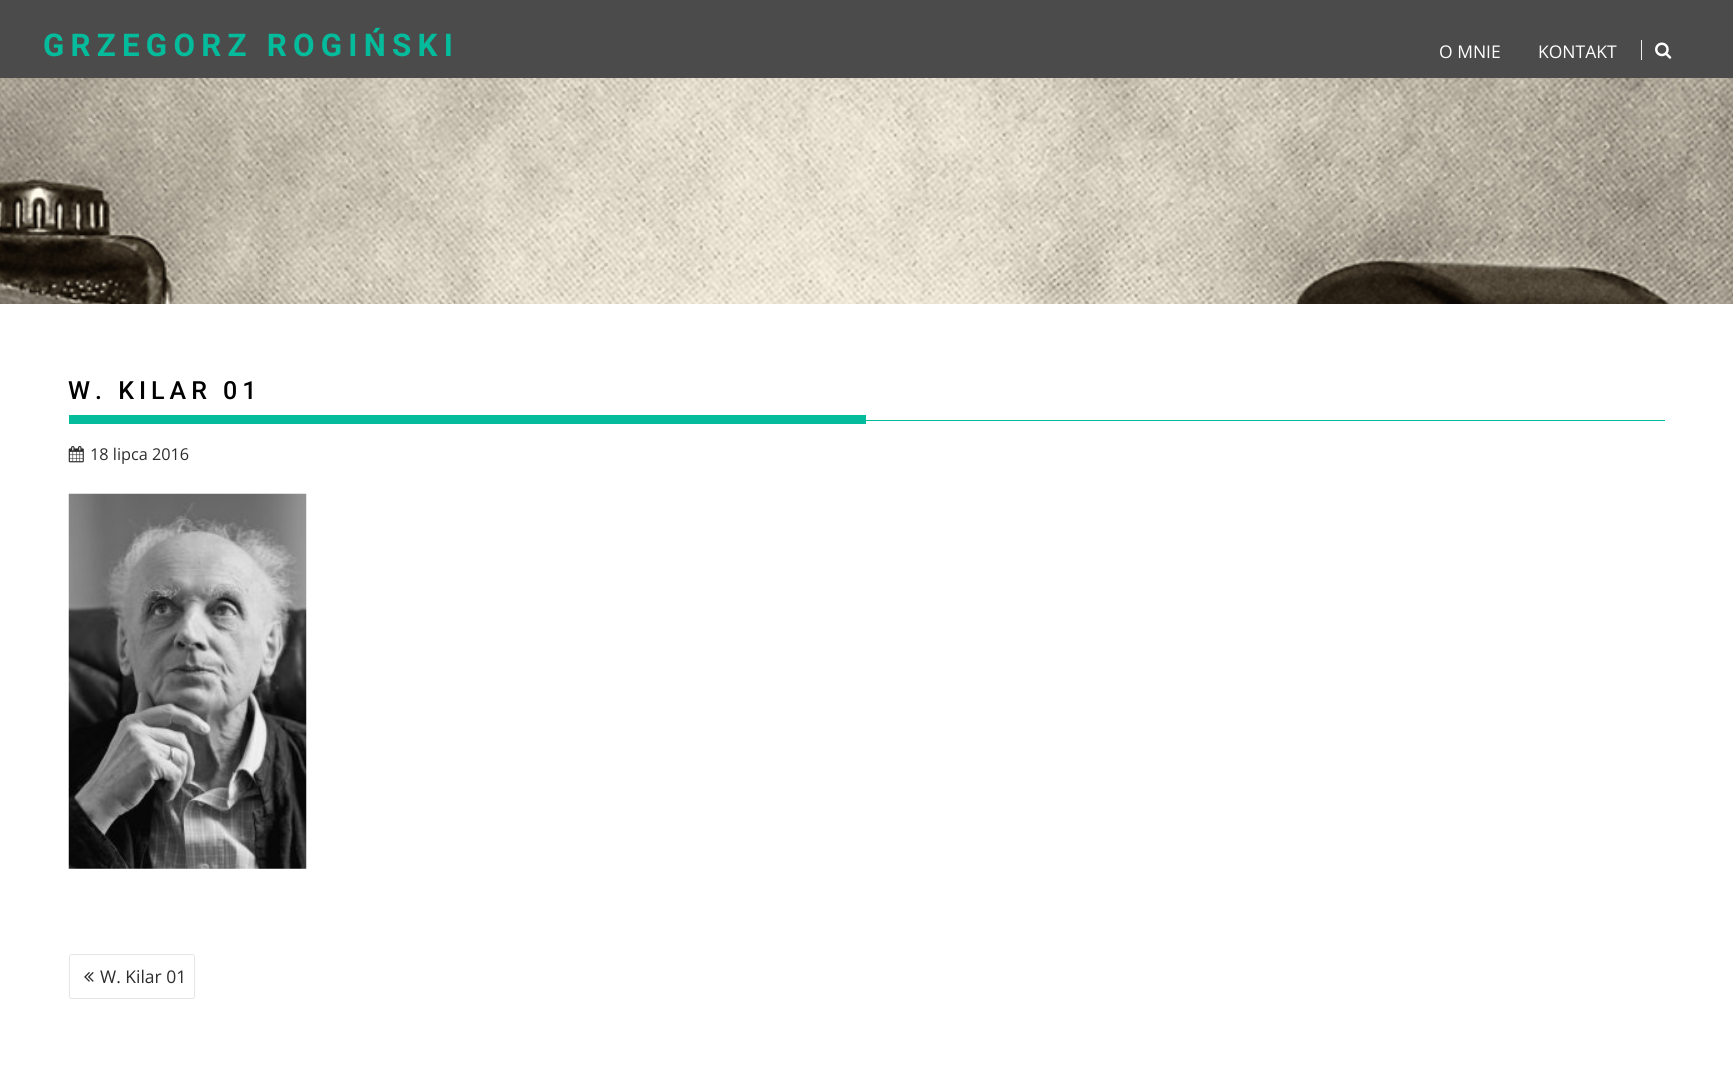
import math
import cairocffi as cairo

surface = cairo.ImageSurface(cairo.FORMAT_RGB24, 1733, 1072)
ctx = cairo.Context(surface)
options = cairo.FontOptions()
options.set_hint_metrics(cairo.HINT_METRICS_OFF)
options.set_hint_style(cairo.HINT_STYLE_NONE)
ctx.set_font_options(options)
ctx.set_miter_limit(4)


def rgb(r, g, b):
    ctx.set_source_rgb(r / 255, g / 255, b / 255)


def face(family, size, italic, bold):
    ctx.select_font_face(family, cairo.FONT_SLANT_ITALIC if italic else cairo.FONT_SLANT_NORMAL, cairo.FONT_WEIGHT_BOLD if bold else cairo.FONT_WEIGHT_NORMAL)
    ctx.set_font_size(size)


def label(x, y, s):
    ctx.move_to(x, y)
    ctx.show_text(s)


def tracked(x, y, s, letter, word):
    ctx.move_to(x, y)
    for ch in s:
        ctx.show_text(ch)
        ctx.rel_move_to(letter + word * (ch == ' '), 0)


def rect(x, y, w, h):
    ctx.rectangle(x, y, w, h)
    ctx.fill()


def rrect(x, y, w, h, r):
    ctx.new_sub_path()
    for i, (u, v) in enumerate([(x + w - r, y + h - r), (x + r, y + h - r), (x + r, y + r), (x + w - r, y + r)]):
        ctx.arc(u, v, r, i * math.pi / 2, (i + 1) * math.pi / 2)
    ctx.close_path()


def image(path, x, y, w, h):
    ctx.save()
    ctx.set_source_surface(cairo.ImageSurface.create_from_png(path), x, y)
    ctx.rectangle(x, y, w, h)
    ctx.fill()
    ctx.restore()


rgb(255, 255, 255)
ctx.paint()
rgb(75, 75, 75)
rect(0, 0, 1733, 78)
face('Roboto', 31.25, 0, 1)
rgb(4, 187, 156)
tracked(43, 56, 'GRZEGORZ ROGIŃSKI', 6.25, 0)
face('Open Sans', 17.5, 0, 0)
rgb(255, 255, 255)
label(1439, 58, 'O MNIE')
label(1538, 58, 'KONTAKT')
rgb(238, 238, 238)
rect(1641, 40, 1, 20)
image('image0.png', 1655, 42, 17, 17)
image('image1.png', 0, 78, 1733, 226)
rgb(4, 187, 156)
rect(866, 420, 799, 1)
face('Roboto Medium', 25, 0, 0)
rgb(0, 0, 0)
tracked(68, 399, 'W. KILAR 01', 5, 0)
rgb(4, 187, 156)
rect(69, 415, 797, 9)
image('image2.png', 68, 446, 16, 17)
face('Open Sans', 16.25, 0, 0)
rgb(45, 45, 45)
label(90, 460, '18 lipca 2016')
image('image3.png', 68, 493, 239, 376)
rrect(69.5, 954.5, 125, 44, 2)
rgb(229, 229, 229)
ctx.set_line_width(1)
ctx.stroke()
image('image4.png', 84, 972, 10, 10)
face('Open Sans', 17.5, 0, 0)
rgb(45, 45, 45)
label(100, 983, 'W. Kilar 01')
surface.write_to_png('render.png')
